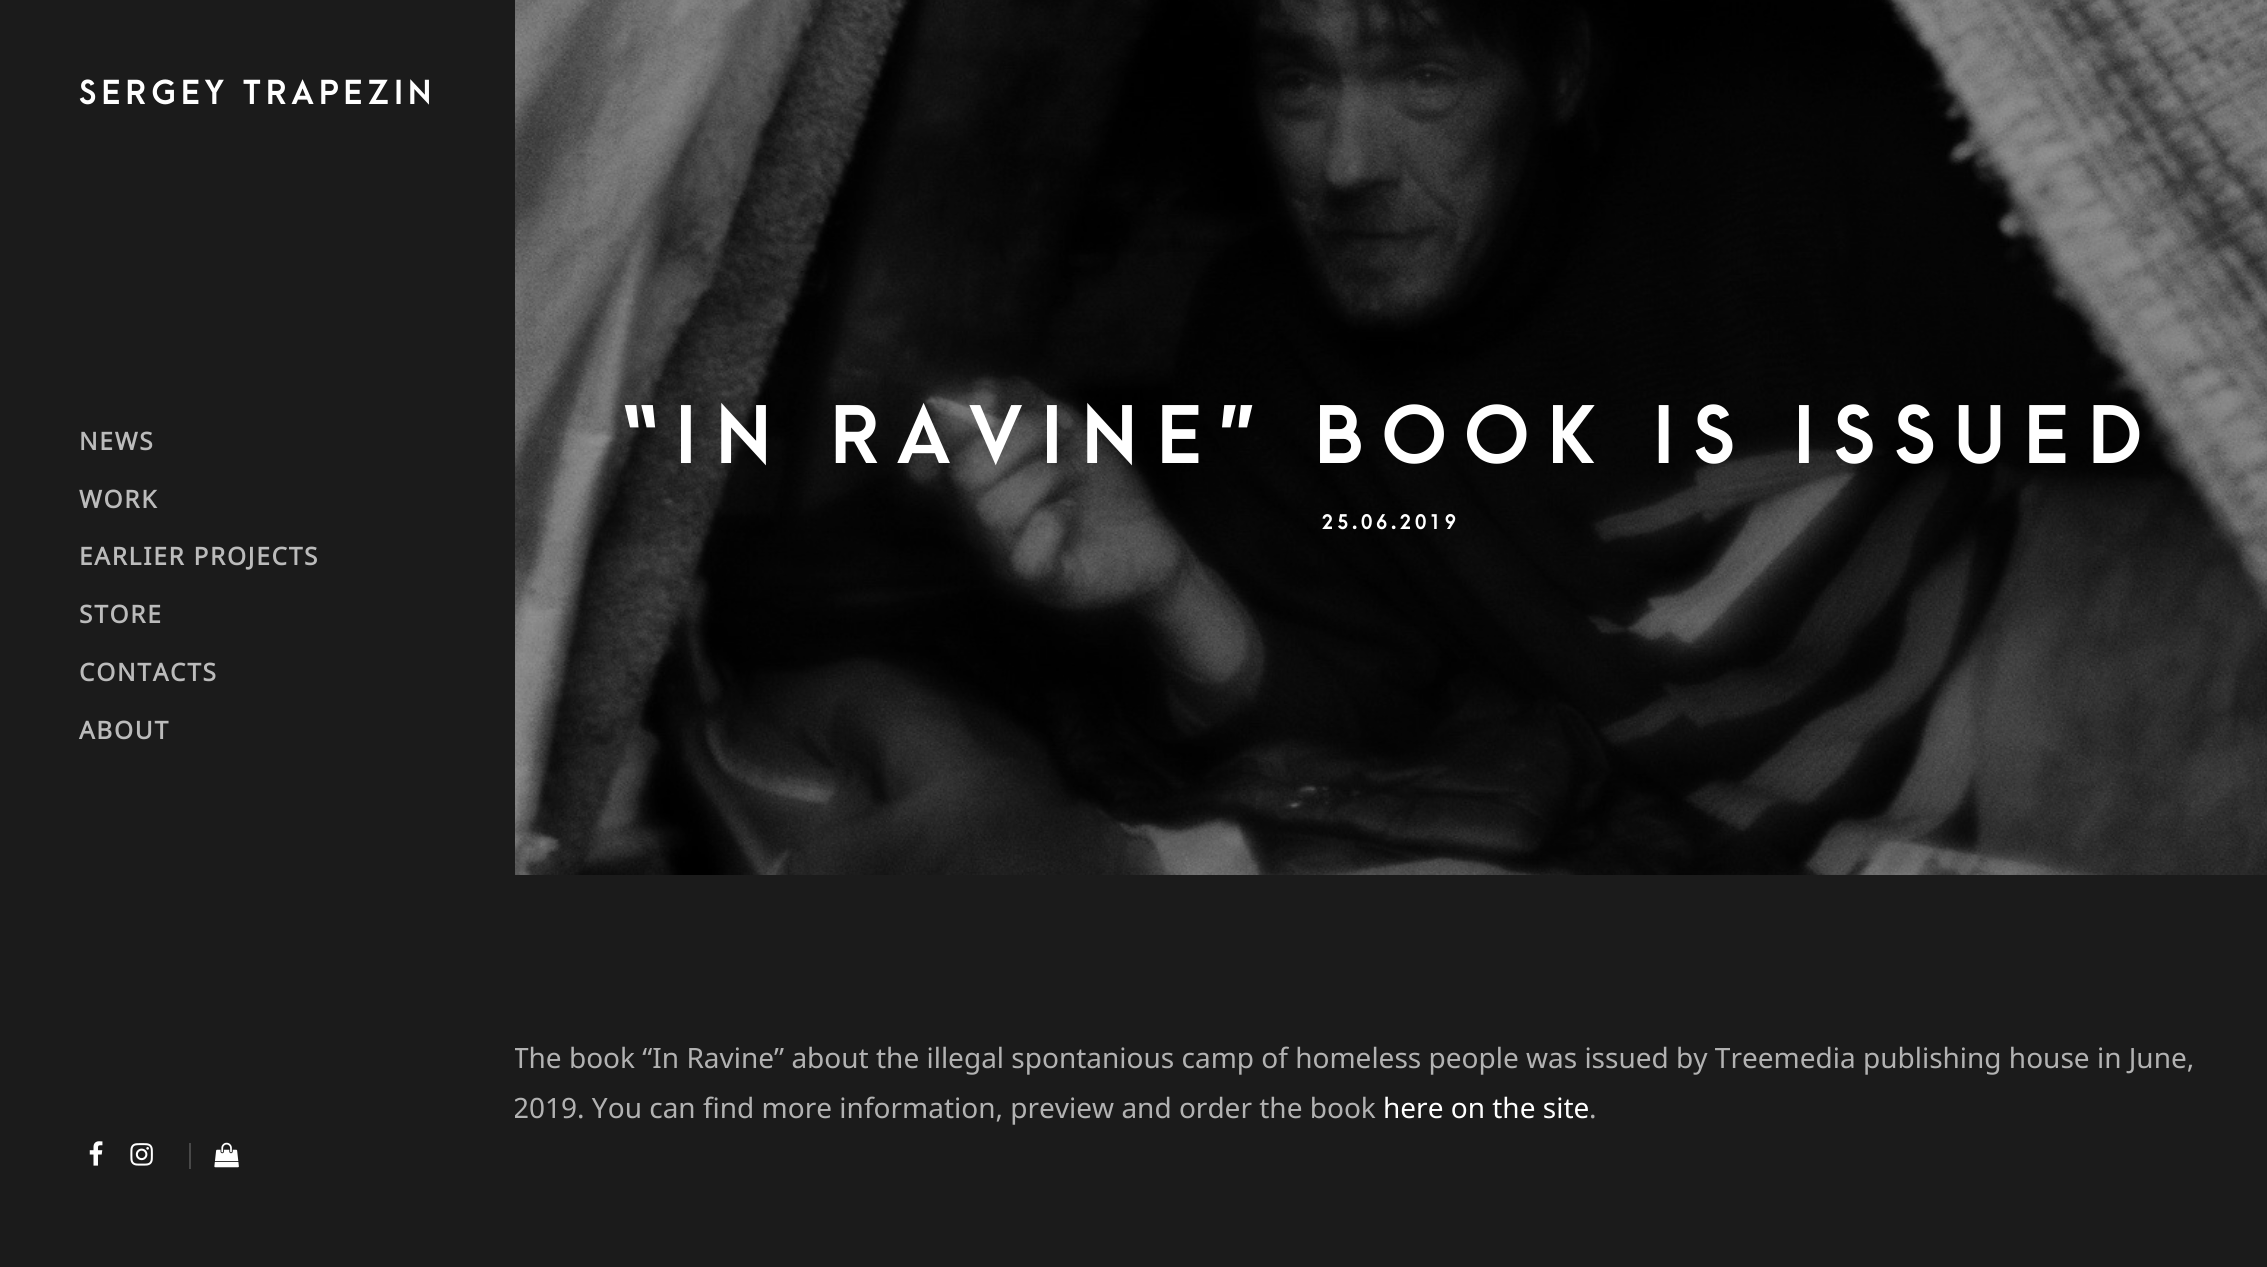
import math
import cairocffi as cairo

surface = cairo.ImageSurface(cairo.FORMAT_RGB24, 2267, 1267)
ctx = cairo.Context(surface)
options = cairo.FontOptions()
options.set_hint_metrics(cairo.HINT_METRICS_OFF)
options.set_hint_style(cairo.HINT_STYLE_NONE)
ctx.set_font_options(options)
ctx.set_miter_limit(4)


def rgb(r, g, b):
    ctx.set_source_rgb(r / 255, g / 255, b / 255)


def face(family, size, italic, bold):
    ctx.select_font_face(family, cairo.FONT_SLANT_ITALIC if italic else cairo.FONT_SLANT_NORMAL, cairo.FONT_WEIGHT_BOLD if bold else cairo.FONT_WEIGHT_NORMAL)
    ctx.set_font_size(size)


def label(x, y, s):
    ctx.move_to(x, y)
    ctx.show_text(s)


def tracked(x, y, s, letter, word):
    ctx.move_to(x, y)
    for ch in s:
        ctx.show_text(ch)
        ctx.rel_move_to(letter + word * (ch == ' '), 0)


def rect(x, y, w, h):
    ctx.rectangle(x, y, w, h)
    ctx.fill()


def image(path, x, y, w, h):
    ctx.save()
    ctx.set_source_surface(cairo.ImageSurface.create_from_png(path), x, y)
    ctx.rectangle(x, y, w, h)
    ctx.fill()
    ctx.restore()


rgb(27, 27, 27)
ctx.paint()
face('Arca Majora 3', 31.5, 0, 1)
rgb(255, 255, 255)
tracked(79, 104, 'SERGEY TRAPEZIN', 5.25, 0)
face('Noto Sans', 28, 0, 0)
rgb(178, 178, 178)
label(513, 1068, 'The book “In Ravine” about the illegal spontanious camp of homeless people was issued by Treemedia publishing house in June,')
label(513, 1118, '2019. You can find more information, preview and order the book')
rgb(27, 27, 27)
rect(513, 1048, 2, 70)
face('Noto Sans', 24.5, 0, 1)
rgb(187, 187, 187)
tracked(79, 450, 'NEWS', 1.7, 0)
tracked(79, 508, 'WORK', 1.7, 0)
tracked(79, 565, 'EARLIER PROJECTS', 1.7, 0)
tracked(79, 623, 'STORE', 1.7, 0)
tracked(79, 681, 'CONTACTS', 1.7, 0)
tracked(79, 739, 'ABOUT', 1.7, 0)
image('image0.png', 89, 1141, 14, 25)
image('image1.png', 130, 1143, 23, 23)
rgb(72, 72, 72)
rect(189, 1143, 2, 26)
image('image2.png', 214, 1142, 25, 26)
image('image3.png', 515, 0, 1752, 875)
face('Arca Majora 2 Black', 75.25, 0, 0)
rgb(255, 255, 255)
tracked(621, 463, '“in ravine” book is issued', 18.4, 0)
face('Arca Majora 3', 19.25, 0, 1)
tracked(1322, 529, '25.06.2019', 3.5, 0)
face('Noto Sans', 28, 0, 0)
label(1383, 1118, 'here on the site')
rgb(178, 178, 178)
label(1589, 1118, '.')
surface.write_to_png('render.png')
